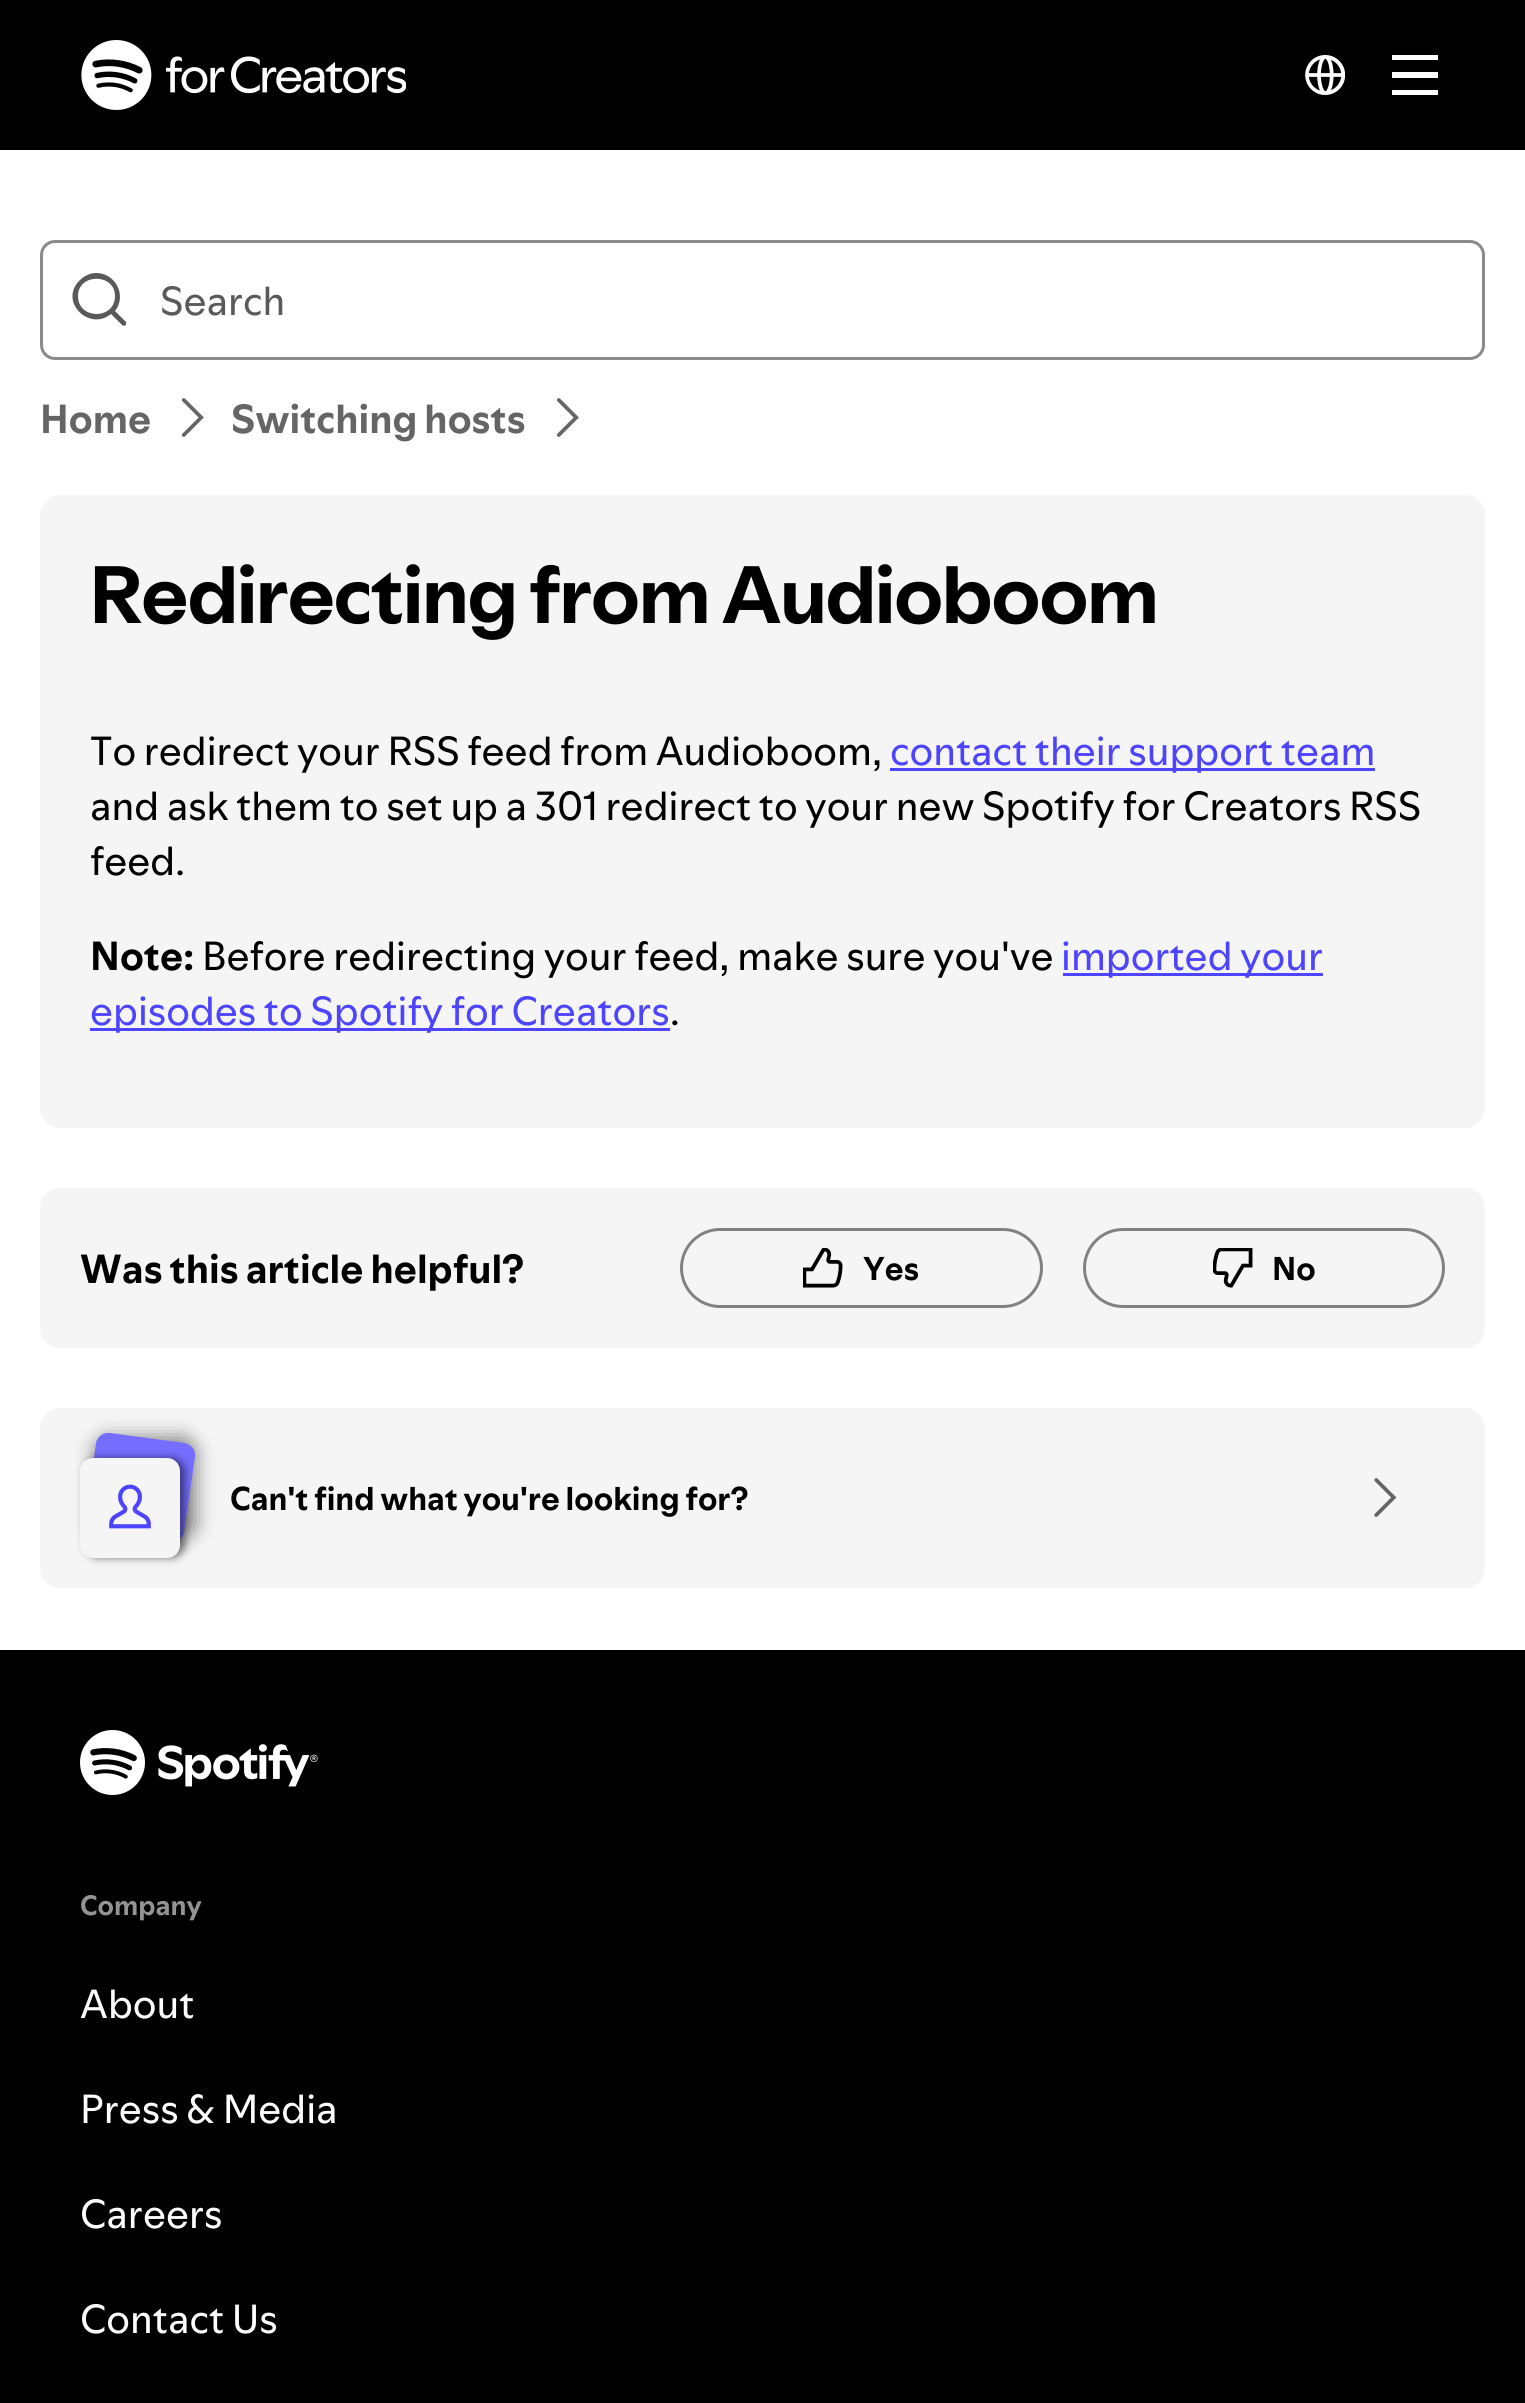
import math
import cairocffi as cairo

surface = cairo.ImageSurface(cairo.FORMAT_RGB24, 1525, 2403)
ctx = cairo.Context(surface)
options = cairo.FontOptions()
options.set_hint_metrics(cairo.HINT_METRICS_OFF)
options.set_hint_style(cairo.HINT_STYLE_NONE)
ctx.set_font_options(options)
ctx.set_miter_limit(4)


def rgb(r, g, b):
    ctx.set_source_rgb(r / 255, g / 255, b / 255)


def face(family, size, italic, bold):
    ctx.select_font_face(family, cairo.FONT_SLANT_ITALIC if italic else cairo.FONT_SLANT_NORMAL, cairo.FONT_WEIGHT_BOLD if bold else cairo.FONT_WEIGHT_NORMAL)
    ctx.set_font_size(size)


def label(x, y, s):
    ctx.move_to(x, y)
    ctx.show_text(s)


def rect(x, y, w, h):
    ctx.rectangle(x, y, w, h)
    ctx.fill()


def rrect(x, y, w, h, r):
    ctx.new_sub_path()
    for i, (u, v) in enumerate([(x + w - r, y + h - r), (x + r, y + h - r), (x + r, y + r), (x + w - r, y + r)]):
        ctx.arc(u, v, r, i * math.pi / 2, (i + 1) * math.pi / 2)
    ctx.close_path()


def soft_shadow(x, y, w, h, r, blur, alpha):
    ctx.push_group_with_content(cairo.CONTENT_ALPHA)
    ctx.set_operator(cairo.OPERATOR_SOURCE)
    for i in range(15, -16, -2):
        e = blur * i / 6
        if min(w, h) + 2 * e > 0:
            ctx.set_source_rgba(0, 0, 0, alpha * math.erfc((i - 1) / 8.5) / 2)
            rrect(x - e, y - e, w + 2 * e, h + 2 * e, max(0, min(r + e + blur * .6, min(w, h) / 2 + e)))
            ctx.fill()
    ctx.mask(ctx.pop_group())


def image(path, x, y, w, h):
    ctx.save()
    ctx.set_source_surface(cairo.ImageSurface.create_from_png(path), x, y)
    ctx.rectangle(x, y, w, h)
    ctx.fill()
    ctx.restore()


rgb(255, 255, 255)
ctx.paint()
rgb(0, 0, 0)
rect(0, 0, 1525, 150)
image('image0.png', 81, 40, 325, 70)
image('image1.png', 1305, 55, 40, 40)
rgb(255, 255, 255)
ctx.new_path()
ctx.move_to(1438, 60)
ctx.line_to(1392, 60)
ctx.line_to(1392, 55)
ctx.line_to(1438, 55)
ctx.close_path()
ctx.move_to(1438, 95)
ctx.line_to(1392, 95)
ctx.line_to(1392, 90)
ctx.line_to(1438, 90)
ctx.close_path()
ctx.move_to(1438, 78)
ctx.line_to(1392, 78)
ctx.line_to(1392, 72)
ctx.line_to(1438, 72)
ctx.close_path()
ctx.fill()
rrect(41.5, 241.5, 1442, 117, 13.5)
rgb(138, 138, 138)
ctx.set_line_width(3)
ctx.stroke()
rgb(90, 90, 90)
ctx.new_path()
ctx.move_to(96, 273)
ctx.curve_to(90, 273, 84, 276, 80, 280)
ctx.curve_to(58, 301, 89, 332, 111, 314)
ctx.line_to(122, 325)
ctx.curve_to(123, 326, 125, 326, 126, 325)
ctx.curve_to(126, 324, 126, 323, 126, 322)
ctx.line_to(115, 311)
ctx.curve_to(127, 296, 116, 273, 96, 273)
ctx.close_path()
ctx.move_to(78, 296)
ctx.curve_to(78, 273, 115, 273, 115, 296)
ctx.curve_to(115, 320, 78, 320, 78, 296)
ctx.close_path()
ctx.fill()
face('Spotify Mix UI', 40, 0, 0)
label(160, 315, 'Search')
face('Spotify Mix UI', 40, 0, 1)
rgb(101, 101, 101)
label(40, 433, 'Home')
image('image2.png', 181, 398, 23, 39)
label(231, 433, 'Switching hosts')
image('image2.png', 556, 398, 23, 39)
rgb(245, 245, 245)
rrect(40, 495, 1445, 633, 20)
ctx.fill()
face('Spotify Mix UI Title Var', 80, 0, 1)
rgb(0, 0, 0)
label(90, 623, 'Redirecting from Audioboom')
face('Spotify Mix UI', 40, 0, 0)
label(90, 765, 'To redirect your RSS feed from Audioboom,')
rgb(77, 68, 255)
rect(890, 768, 485, 3)
label(890, 765, 'contact their support team')
rgb(0, 0, 0)
label(90, 820, 'and ask them to set up a 301 redirect to your new Spotify for Creators RSS')
label(90, 875, 'feed.')
face('Spotify Mix UI', 40, 0, 1)
label(90, 970, 'Note:')
face('Spotify Mix UI', 40, 0, 0)
label(202, 970, 'Before redirecting your feed, make sure you\'ve')
rgb(77, 68, 255)
rect(1063, 973, 260, 3)
label(1061, 970, 'imported your')
rect(90, 1028, 580, 3)
label(90, 1025, 'episodes to Spotify for Creators')
rgb(0, 0, 0)
label(670, 1025, '.')
rgb(245, 245, 245)
rrect(40, 1188, 1445, 160, 20)
ctx.fill()
face('Spotify Mix UI', 40, 0, 1)
rgb(0, 0, 0)
label(80, 1283, 'Was this article helpful?')
rrect(681.5, 1229.5, 360, 77, 38.5)
rgb(129, 129, 129)
ctx.stroke()
image('image3.png', 803, 1248, 40, 40)
face('Spotify Mix UI', 32.5, 0, 1)
rgb(0, 0, 0)
label(863, 1280, 'Yes')
rrect(1084.5, 1229.5, 359, 77, 38.5)
rgb(129, 129, 129)
ctx.stroke()
image('image4.png', 1213, 1248, 40, 40)
rgb(0, 0, 0)
label(1272, 1280, 'No')
rgb(245, 245, 245)
rrect(40, 1408, 1445, 180, 20)
ctx.fill()
rgb(0, 0, 0)
soft_shadow(95, 1438, 100, 100, 13, 10, 0.5)
rgb(116, 109, 255)
ctx.new_path()
ctx.move_to(110, 1433)
ctx.line_to(184, 1443)
ctx.curve_to(191, 1444, 196, 1450, 195, 1457)
ctx.line_to(184, 1532)
ctx.curve_to(183, 1538, 177, 1543, 170, 1542)
ctx.line_to(96, 1532)
ctx.curve_to(89, 1531, 84, 1525, 85, 1518)
ctx.line_to(96, 1443)
ctx.curve_to(97, 1437, 103, 1432, 110, 1433)
ctx.close_path()
ctx.fill()
rgb(0, 0, 0)
soft_shadow(85, 1458, 100, 100, 13, 4, 0.5)
rgb(245, 245, 245)
rrect(80, 1458, 100, 100, 13)
ctx.fill()
image('image5.png', 109, 1484, 42, 45)
rgb(0, 0, 0)
label(230, 1510, 'Can\'t find what you\'re looking for?')
image('image6.png', 1374, 1478, 23, 39)
rect(0, 1650, 1525, 753)
image('image7.png', 80, 1730, 238, 65)
face('Spotify Mix UI', 27.5, 0, 1)
rgb(147, 147, 147)
label(80, 1915, 'Company')
face('Spotify Mix UI', 40, 0, 0)
rgb(255, 255, 255)
label(80, 2018, 'About')
label(80, 2123, 'Press & Media')
label(80, 2228, 'Careers')
label(80, 2333, 'Contact Us')
surface.write_to_png('render.png')
